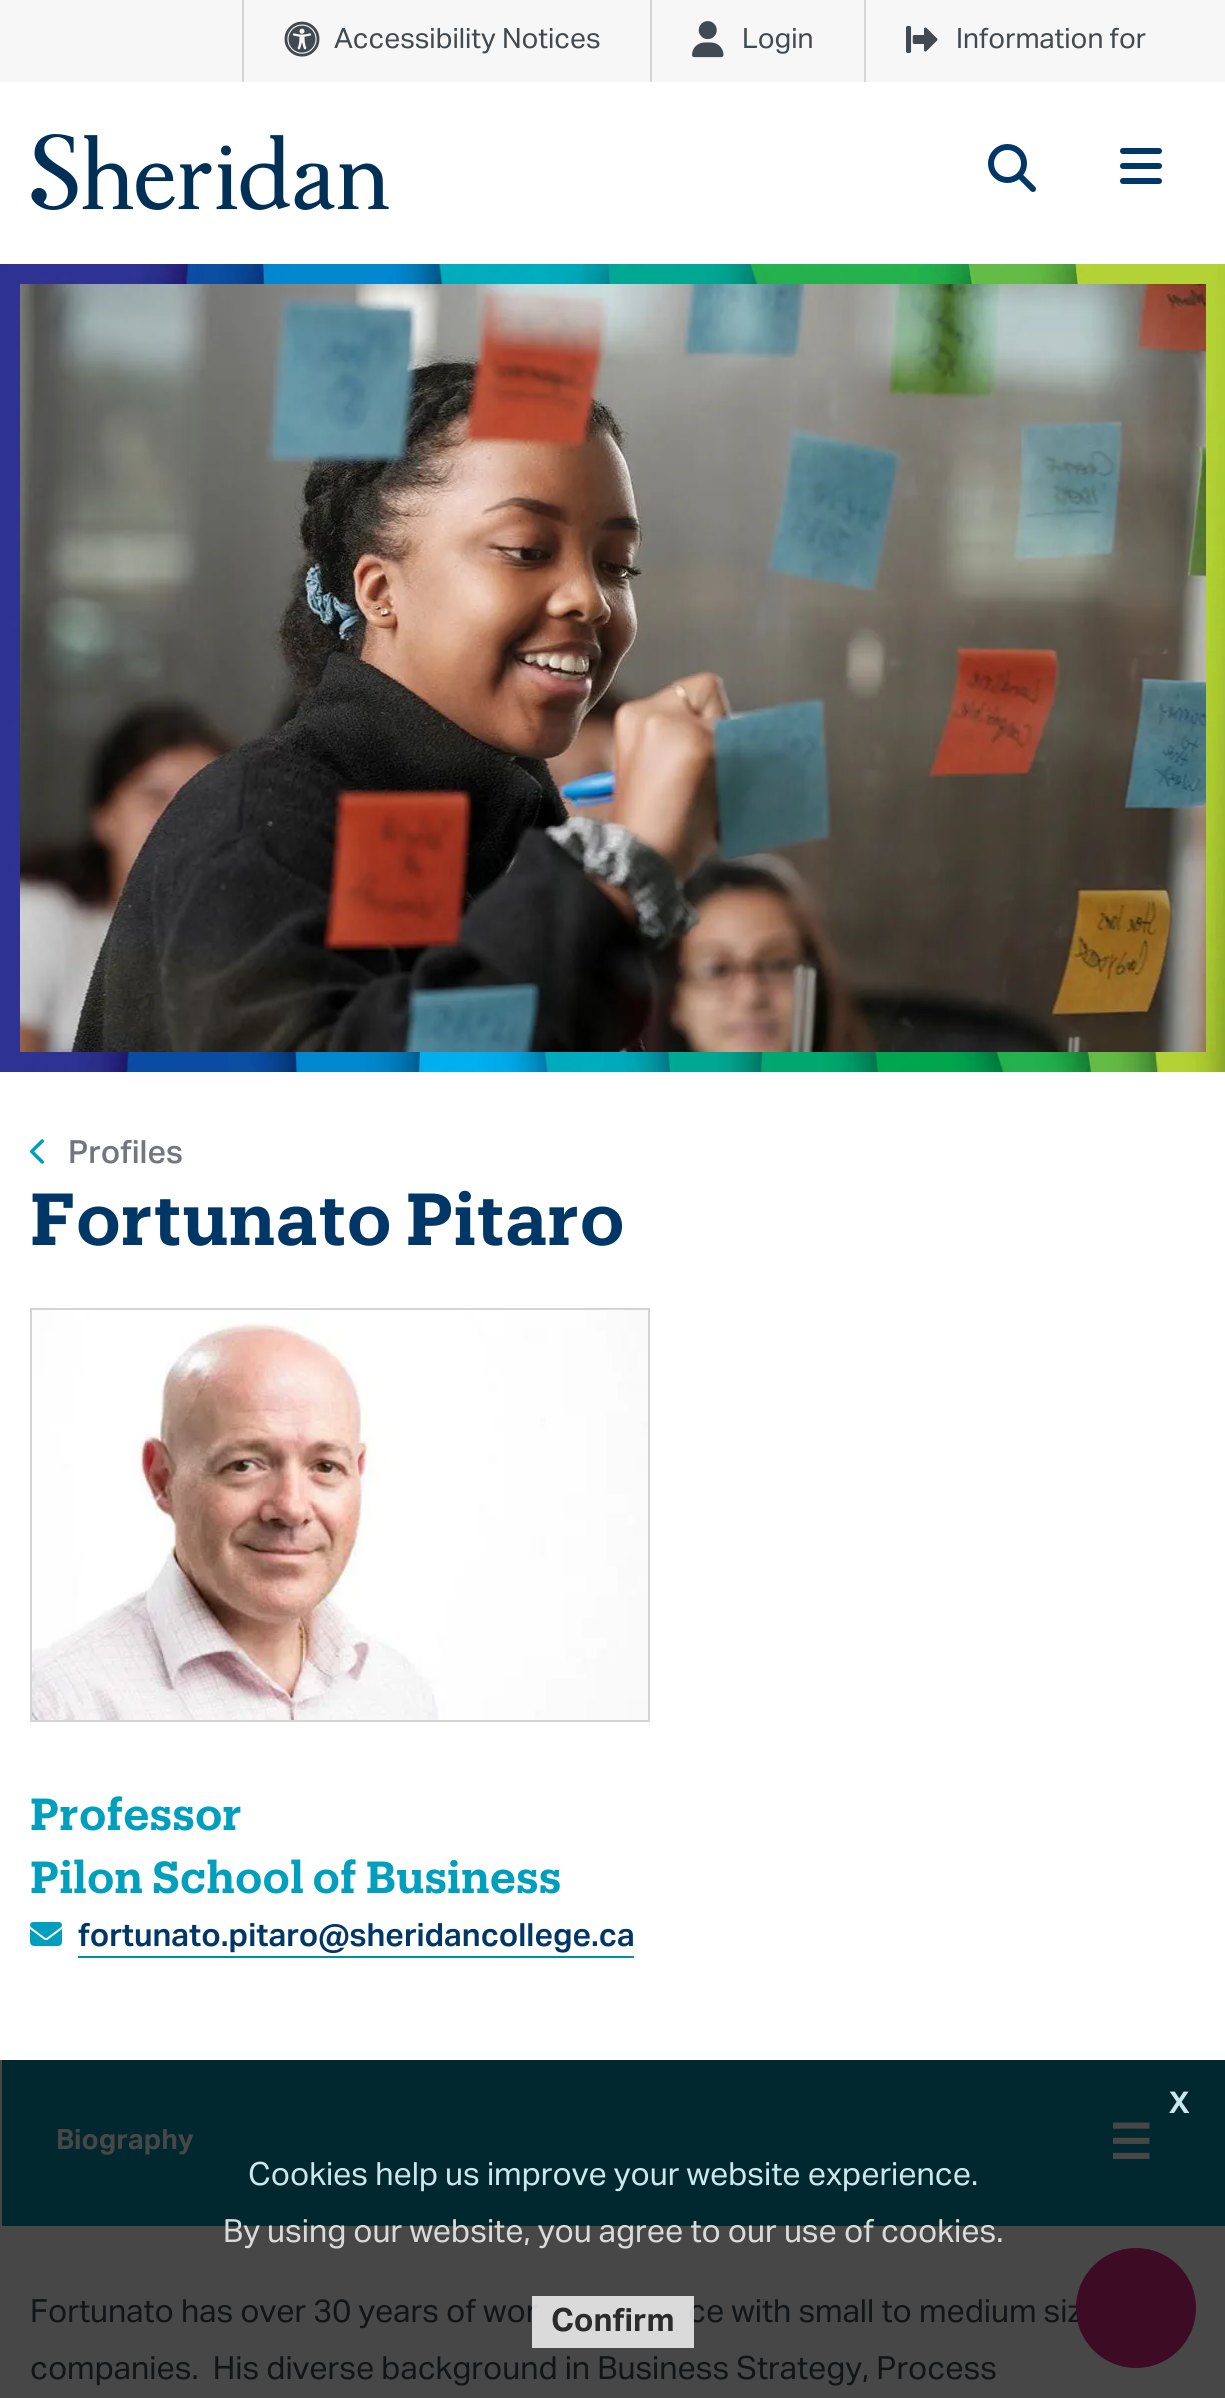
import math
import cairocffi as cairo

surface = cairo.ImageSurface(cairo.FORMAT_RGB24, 1225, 2398)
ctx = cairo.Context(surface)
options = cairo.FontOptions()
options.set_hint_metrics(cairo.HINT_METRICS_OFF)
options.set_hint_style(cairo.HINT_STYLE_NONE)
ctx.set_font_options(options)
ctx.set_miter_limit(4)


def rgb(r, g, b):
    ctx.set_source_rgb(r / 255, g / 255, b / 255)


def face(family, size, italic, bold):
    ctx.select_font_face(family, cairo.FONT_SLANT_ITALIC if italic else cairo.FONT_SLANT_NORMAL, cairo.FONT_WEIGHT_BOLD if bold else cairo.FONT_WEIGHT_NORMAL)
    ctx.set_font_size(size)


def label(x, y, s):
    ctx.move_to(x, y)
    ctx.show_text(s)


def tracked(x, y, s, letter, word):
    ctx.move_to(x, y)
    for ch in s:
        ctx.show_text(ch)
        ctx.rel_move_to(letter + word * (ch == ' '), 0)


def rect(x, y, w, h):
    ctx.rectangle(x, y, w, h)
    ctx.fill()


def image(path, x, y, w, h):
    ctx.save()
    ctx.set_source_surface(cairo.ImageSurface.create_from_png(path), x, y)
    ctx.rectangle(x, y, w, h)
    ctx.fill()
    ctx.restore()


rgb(255, 255, 255)
ctx.paint()
rgb(71, 71, 71)
rect(0, 2060, 1225, 338)
rgb(247, 247, 247)
rect(0, 0, 1225, 82)
rgb(212, 212, 212)
rect(242, 0, 2, 82)
image('image0.png', 284, 21, 36, 36)
face('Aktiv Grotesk', 28, 0, 0)
rgb(65, 74, 81)
label(334, 48, 'Accessibility Notices')
rgb(212, 212, 212)
rect(650, 0, 2, 82)
image('image1.png', 692, 21, 32, 37)
rgb(65, 74, 81)
label(742, 48, 'Login')
rgb(212, 212, 212)
rect(864, 0, 2, 82)
image('image2.png', 906, 26, 32, 27)
rgb(65, 74, 81)
label(956, 48, 'Information for')
image('image3.png', 31, 134, 358, 76)
image('image4.png', 988, 144, 48, 48)
image('image5.png', 1120, 148, 42, 36)
image('image6.png', 0, 264, 1225, 808)
image('image7.png', 20, 284, 1186, 768)
image('image8.png', 30, 1139, 14, 25)
face('Aktiv Grotesk Medium', 32, 0, 0)
rgb(115, 118, 130)
label(68, 1163, 'Profiles')
face('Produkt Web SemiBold', 72, 0, 0)
rgb(1, 55, 103)
label(30, 1245, 'Fortunato Pitaro')
ctx.rectangle(31, 1309, 618, 412)
rgb(212, 212, 212)
ctx.stroke()
image('image9.png', 32, 1310, 616, 410)
face('Produkt Web SemiBold', 44, 0, 0)
rgb(0, 159, 189)
label(30, 1830, 'Professor')
label(30, 1893, 'Pilon School of Business')
image('image10.png', 30, 1922, 32, 24)
face('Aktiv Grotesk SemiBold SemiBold', 32, 0, 0)
rgb(1, 55, 103)
label(78, 1946, 'fortunato.pitaro@sheridancollege.ca')
rgb(0, 142, 165)
rect(78, 1956, 556, 2)
rgb(0, 40, 46)
rect(2, 2060, 1223, 166)
face('Aktiv Grotesk', 28, 0, 1)
rgb(71, 71, 71)
label(56, 2149, 'Biography')
face('DejaVu Sans', 48, 0, 1)
label(1109, 2159, '☰')
face('Aktiv Grotesk', 32, 0, 0)
rgb(18, 21, 23)
label(30, 2322, 'Fortunato has over 30 years of wor')
label(688, 2322, 'ce with small to medium siz')
label(30, 2379, 'companies.  His diverse background in Business Strategy, Process')
face('Aktiv Grotesk', 30, 0, 1)
rgb(204, 232, 237)
tracked(1169, 2113, 'X', 8, 0)
face('Aktiv Grotesk', 32, 0, 0)
label(248, 2185, 'Cookies help us improve your website experience.')
rgb(217, 218, 218)
label(223, 2242, 'By using our website, you agree to our use of cookies.')
ctx.set_source_rgba(1, 1, 1, 0.8)
rect(532, 2296, 162, 52)
face('Aktiv Grotesk', 32, 0, 1)
rgb(43, 43, 43)
label(551, 2331, 'Confirm')
rgb(61, 11, 36)
ctx.new_path()
ctx.arc(1136, 2308, 60, 0, 2 * math.pi)
ctx.fill()
surface.write_to_png('render.png')
